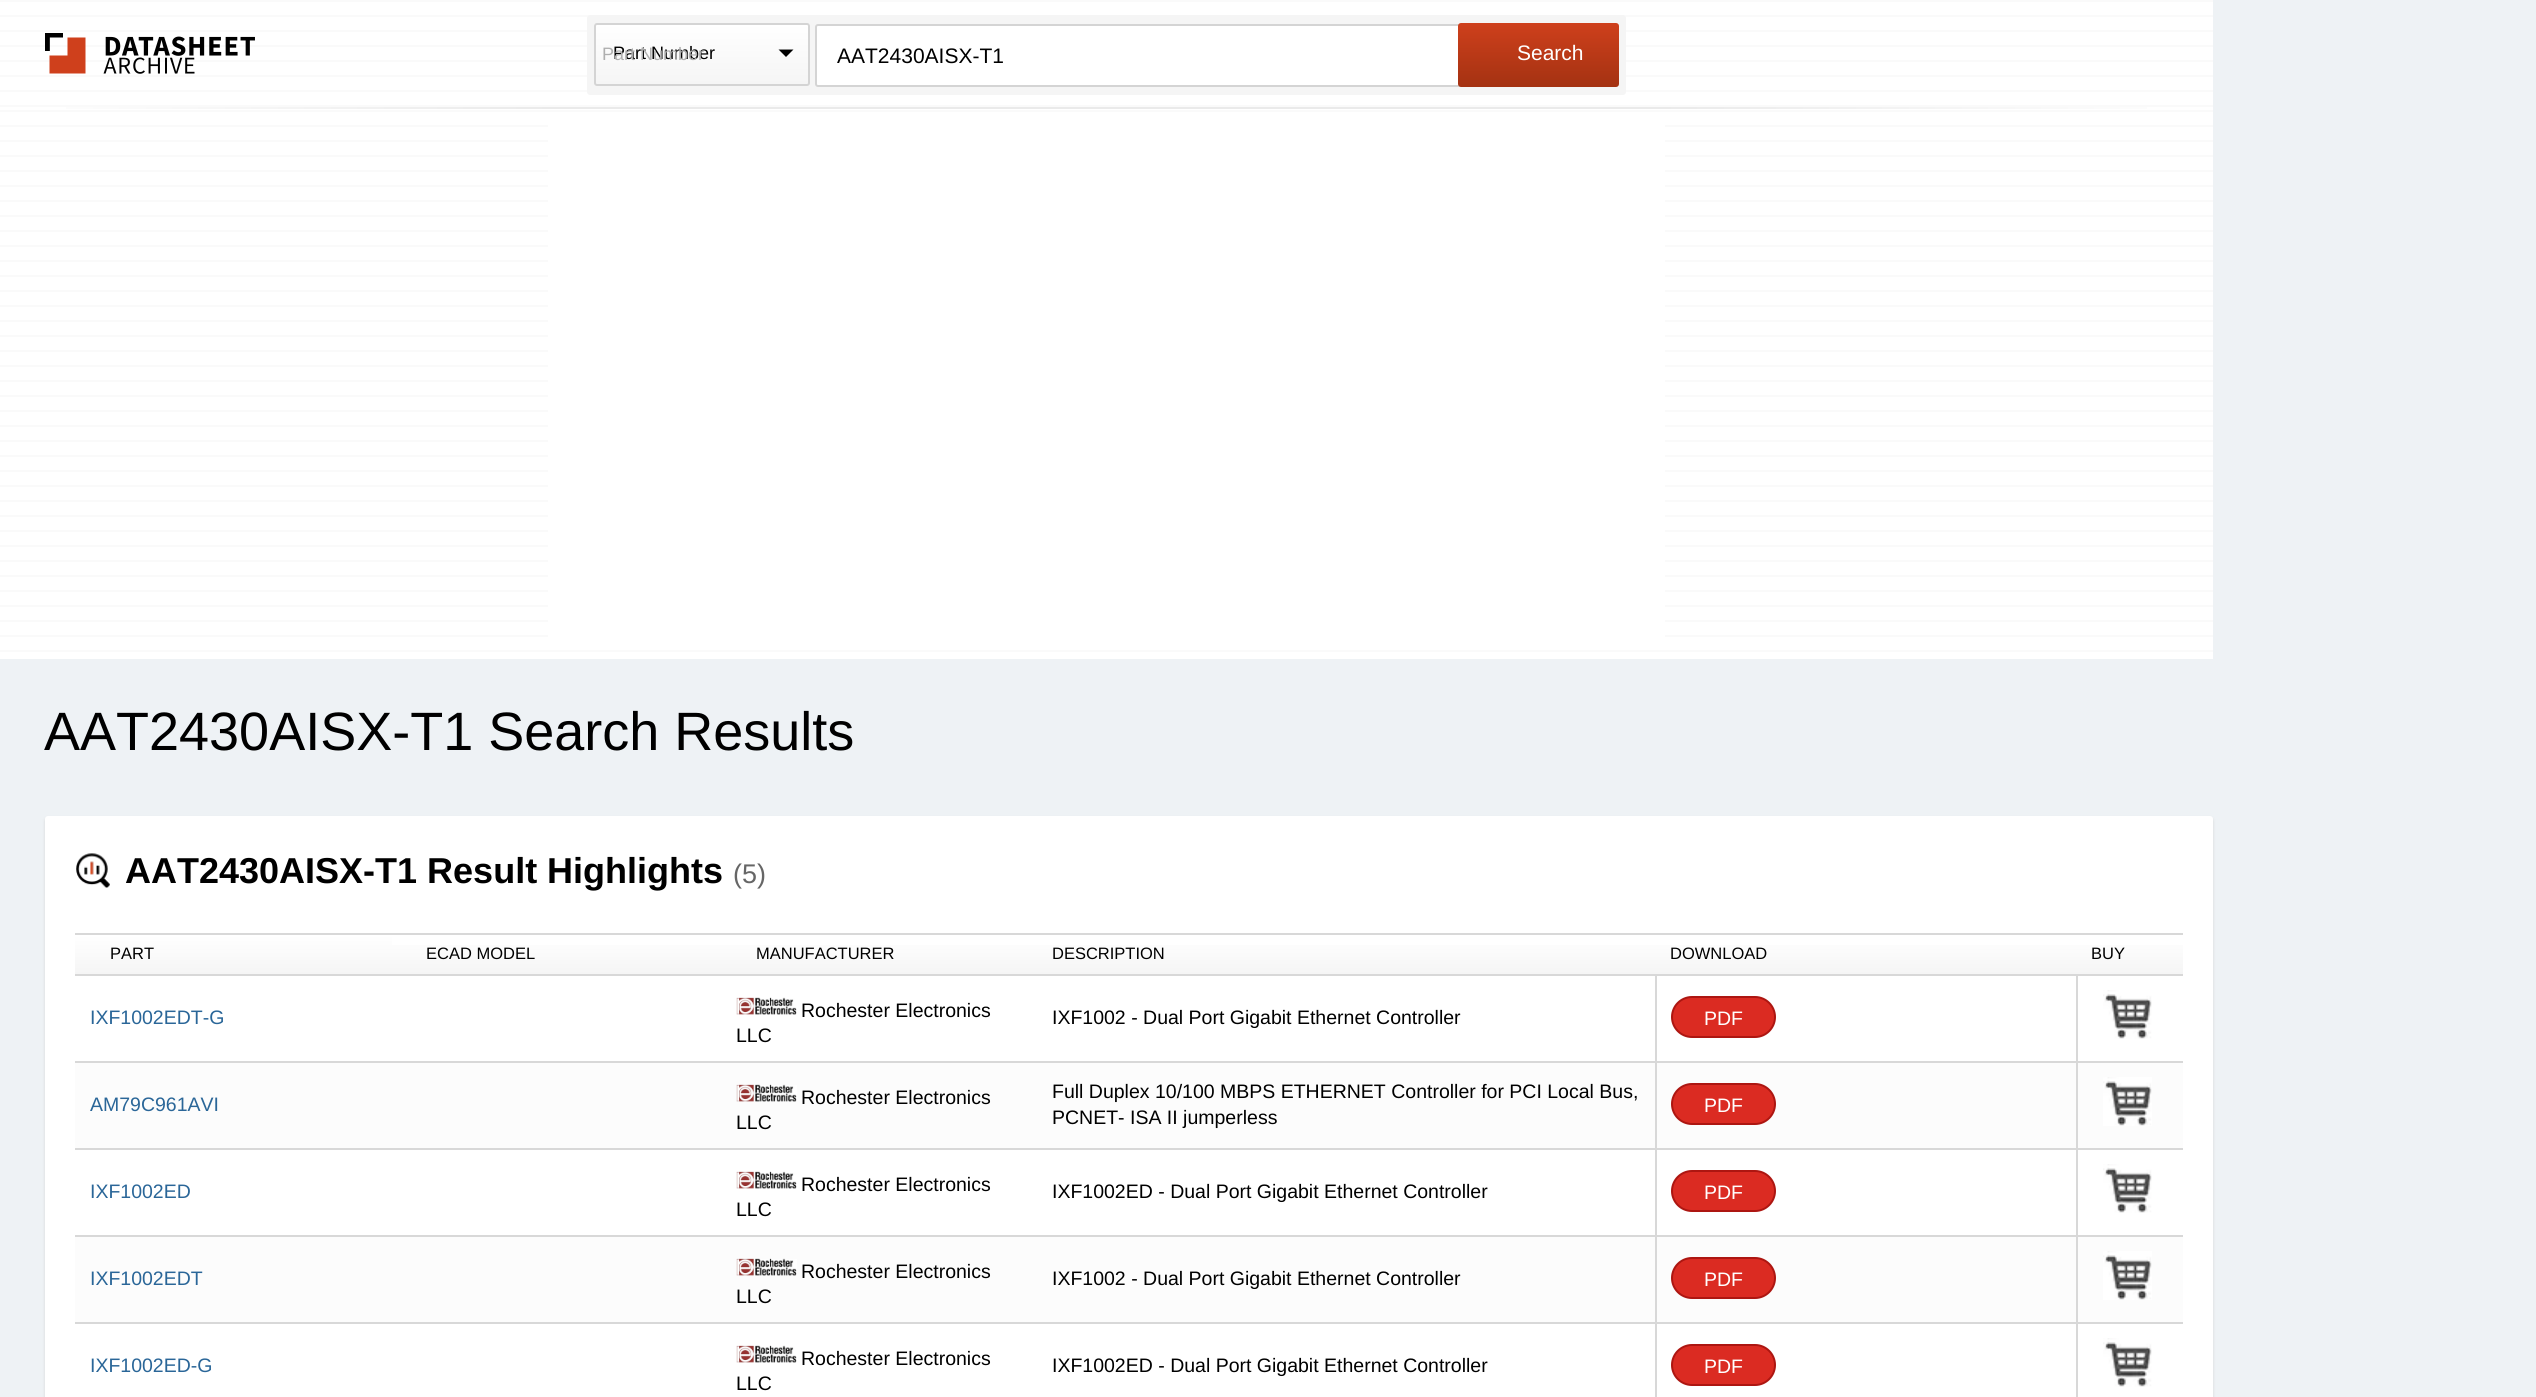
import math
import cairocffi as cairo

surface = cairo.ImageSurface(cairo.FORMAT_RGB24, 2536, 1397)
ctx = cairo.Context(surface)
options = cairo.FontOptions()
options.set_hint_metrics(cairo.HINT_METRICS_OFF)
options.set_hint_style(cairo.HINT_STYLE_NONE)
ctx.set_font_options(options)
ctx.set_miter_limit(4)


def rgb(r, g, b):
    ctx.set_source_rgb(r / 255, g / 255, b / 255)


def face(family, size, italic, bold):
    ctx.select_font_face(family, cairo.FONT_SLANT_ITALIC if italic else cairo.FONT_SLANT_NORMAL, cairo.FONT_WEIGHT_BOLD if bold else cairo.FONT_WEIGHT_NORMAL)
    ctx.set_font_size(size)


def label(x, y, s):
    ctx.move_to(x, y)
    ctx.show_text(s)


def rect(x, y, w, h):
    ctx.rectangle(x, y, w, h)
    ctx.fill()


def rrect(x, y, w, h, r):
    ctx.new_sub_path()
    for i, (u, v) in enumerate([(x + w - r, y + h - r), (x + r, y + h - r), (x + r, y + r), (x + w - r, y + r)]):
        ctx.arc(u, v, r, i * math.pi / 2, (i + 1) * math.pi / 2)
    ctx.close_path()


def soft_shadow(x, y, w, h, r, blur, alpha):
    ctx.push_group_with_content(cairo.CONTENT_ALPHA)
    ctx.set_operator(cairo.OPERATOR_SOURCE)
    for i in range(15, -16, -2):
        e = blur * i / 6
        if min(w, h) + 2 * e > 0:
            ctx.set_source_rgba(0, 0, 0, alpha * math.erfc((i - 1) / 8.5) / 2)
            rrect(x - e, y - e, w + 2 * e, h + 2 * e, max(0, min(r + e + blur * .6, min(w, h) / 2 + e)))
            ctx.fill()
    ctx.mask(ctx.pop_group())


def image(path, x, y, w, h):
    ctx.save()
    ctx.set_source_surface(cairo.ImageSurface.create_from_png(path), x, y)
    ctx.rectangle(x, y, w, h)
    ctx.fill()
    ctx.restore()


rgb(238, 242, 245)
ctx.paint()
rgb(255, 255, 255)
rect(0, 2, 2213, 108)
rgb(250, 250, 250)
rect(0, 0, 2213, 2)
rect(0, 15, 2213, 2)
rect(0, 30, 2213, 2)
rect(0, 45, 2213, 2)
rect(0, 60, 2213, 2)
rect(0, 75, 2213, 2)
rect(0, 90, 2213, 2)
rect(0, 105, 2213, 2)
image('image0.png', 45, 33, 210, 41)
rgb(245, 245, 245)
rrect(587, 15, 1039, 80, 3)
ctx.fill()
ctx.save()
rrect(594, 23, 216, 63, 3)
ctx.clip()
gradient = cairo.LinearGradient(702, 24, 702, 84)
gradient.add_color_stop_rgba(0, 1, 1, 1, 1)
gradient.add_color_stop_rgba(1, 0.961, 0.961, 0.961, 1)
ctx.set_source(gradient)
rect(594, 24, 216, 60)
ctx.restore()
rrect(595, 24, 214, 61, 2)
rgb(212, 212, 212)
ctx.stroke()
face('Liberation Sans', 18, 0, 0)
rgb(0, 0, 0)
label(613, 59, 'Part Number')
rgb(175, 175, 175)
label(602, 60, 'Part Number')
rgb(0, 0, 0)
ctx.new_path()
ctx.move_to(778.5, 49.5)
ctx.line_to(793.5, 49.5)
ctx.line_to(786, 57)
ctx.close_path()
ctx.fill()
rgb(255, 255, 255)
rrect(816, 25, 772, 61, 2)
ctx.fill_preserve()
rgb(212, 212, 212)
ctx.stroke()
face('Liberation Sans', 21, 0, 0)
rgb(0, 0, 0)
label(837, 63, 'AAT2430AISX-T1')
gradient = cairo.LinearGradient(1538, 22, 1538, 87)
gradient.add_color_stop_rgba(0, 0.812, 0.251, 0.11, 1)
gradient.add_color_stop_rgba(1, 0.643, 0.196, 0.071, 1)
ctx.set_source(gradient)
rrect(1458, 23, 161, 64, 3)
ctx.fill()
rgb(255, 255, 255)
label(1517, 60, 'Search')
gradient = cairo.LinearGradient(0, 107, 2213, 107)
gradient.add_color_stop_rgba(0, 1, 1, 1, 1)
gradient.add_color_stop_rgba(0.25, 0.918, 0.918, 0.918, 1)
gradient.add_color_stop_rgba(0.75, 0.918, 0.918, 0.918, 1)
gradient.add_color_stop_rgba(1, 1, 1, 1, 1)
ctx.set_source(gradient)
rect(66, 107, 2081, 2)
rgb(255, 255, 255)
rect(0, 112, 2213, 547)
image('image1.png', 0, 110, 2213, 542)
rect(548, 125, 1117, 512)
face('Liberation Sans', 54, 0, 0)
rgb(0, 0, 0)
label(44, 750, 'AAT2430AISX-T1 Search Results')
rgb(216, 216, 216)
soft_shadow(45, 818, 2168, 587, 3, 1.5, 1)
rgb(255, 255, 255)
rrect(45, 816, 2168, 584, 3)
ctx.fill()
image('image2.png', 76, 853, 34, 35)
face('Liberation Sans', 36, 0, 1)
rgb(0, 0, 0)
label(125, 883, 'AAT2430AISX-T1 Result Highlights')
face('Liberation Sans', 27, 0, 0)
rgb(102, 102, 102)
label(733, 883, '(5)')
rgb(216, 216, 216)
rect(75, 933, 2108, 2)
rect(75, 974, 2108, 2)
rect(75, 933, 2, 42)
gradient = cairo.LinearGradient(233, 935, 233, 974)
gradient.add_color_stop_rgba(0, 1, 1, 1, 1)
gradient.add_color_stop_rgba(1, 0.961, 0.961, 0.961, 1)
ctx.set_source(gradient)
rect(75, 935, 317, 39)
face('Liberation Sans', 16.5, 0, 0)
rgb(0, 0, 0)
label(110, 959, 'PART')
gradient = cairo.LinearGradient(557, 935, 557, 974)
gradient.add_color_stop_rgba(0, 1, 1, 1, 1)
gradient.add_color_stop_rgba(1, 0.961, 0.961, 0.961, 1)
ctx.set_source(gradient)
rect(392, 945, 330, 29)
rgb(0, 0, 0)
label(426, 959, 'ECAD MODEL')
gradient = cairo.LinearGradient(879, 935, 879, 974)
gradient.add_color_stop_rgba(0, 1, 1, 1, 1)
gradient.add_color_stop_rgba(1, 0.961, 0.961, 0.961, 1)
ctx.set_source(gradient)
rect(722, 945, 315, 29)
rgb(0, 0, 0)
label(756, 959, 'MANUFACTURER')
gradient = cairo.LinearGradient(1346, 935, 1346, 974)
gradient.add_color_stop_rgba(0, 1, 1, 1, 1)
gradient.add_color_stop_rgba(1, 0.961, 0.961, 0.961, 1)
ctx.set_source(gradient)
rect(1037, 945, 618, 29)
rgb(0, 0, 0)
label(1052, 959, 'DESCRIPTION')
gradient = cairo.LinearGradient(1865, 935, 1865, 974)
gradient.add_color_stop_rgba(0, 1, 1, 1, 1)
gradient.add_color_stop_rgba(1, 0.961, 0.961, 0.961, 1)
ctx.set_source(gradient)
rect(1655, 945, 421, 29)
rgb(0, 0, 0)
label(1670, 959, 'DOWNLOAD')
gradient = cairo.LinearGradient(2129, 935, 2129, 974)
gradient.add_color_stop_rgba(0, 1, 1, 1, 1)
gradient.add_color_stop_rgba(1, 0.961, 0.961, 0.961, 1)
ctx.set_source(gradient)
rect(2076, 945, 107, 29)
rgb(0, 0, 0)
label(2091, 959, 'BUY')
rgb(216, 216, 216)
rect(75, 1061, 2108, 2)
face('Liberation Sans', 19.5, 0, 0)
rgb(42, 102, 152)
label(90, 1024, 'IXF1002EDT-G')
image('image3.png', 736, 997, 61, 18)
rgb(0, 0, 0)
label(801, 1017, 'Rochester Electronics')
label(736, 1042, 'LLC')
label(1052, 1024, 'IXF1002 - Dual Port Gigabit Ethernet Controller')
rgb(219, 43, 34)
rrect(1672, 997, 103, 40, 20)
ctx.fill_preserve()
rgb(173, 22, 17)
ctx.stroke()
rgb(255, 255, 255)
label(1704, 1025, 'PDF')
image('image4.png', 2103, 990, 49, 49)
rgb(252, 252, 252)
rect(75, 1063, 2108, 85)
rgb(216, 216, 216)
rect(75, 1148, 2108, 2)
rgb(42, 102, 152)
label(90, 1111, 'AM79C961AVI')
rgb(255, 255, 255)
rect(796, 1085, 1, 16)
image('image5.png', 736, 1084, 61, 18)
rgb(0, 0, 0)
label(801, 1104, 'Rochester Electronics')
label(736, 1129, 'LLC')
label(1052, 1098, 'Full Duplex 10/100 MBPS ETHERNET Controller for PCI Local Bus,')
label(1052, 1124, 'PCNET- ISA II jumperless')
rgb(219, 43, 34)
rrect(1672, 1084, 103, 40, 20)
ctx.fill_preserve()
rgb(173, 22, 17)
ctx.stroke()
rgb(255, 255, 255)
label(1704, 1112, 'PDF')
image('image4.png', 2103, 1077, 49, 49)
rgb(216, 216, 216)
rect(75, 1235, 2108, 2)
rgb(42, 102, 152)
label(90, 1198, 'IXF1002ED')
image('image3.png', 736, 1171, 61, 18)
rgb(0, 0, 0)
label(801, 1191, 'Rochester Electronics')
label(736, 1216, 'LLC')
label(1052, 1198, 'IXF1002ED - Dual Port Gigabit Ethernet Controller')
rgb(219, 43, 34)
rrect(1672, 1171, 103, 40, 20)
ctx.fill_preserve()
rgb(173, 22, 17)
ctx.stroke()
rgb(255, 255, 255)
label(1704, 1199, 'PDF')
image('image4.png', 2103, 1164, 49, 49)
rgb(252, 252, 252)
rect(75, 1237, 2108, 85)
rgb(216, 216, 216)
rect(75, 1322, 2108, 2)
rgb(42, 102, 152)
label(90, 1285, 'IXF1002EDT')
rgb(255, 255, 255)
rect(796, 1259, 1, 16)
image('image5.png', 736, 1258, 61, 18)
rgb(0, 0, 0)
label(801, 1278, 'Rochester Electronics')
label(736, 1303, 'LLC')
label(1052, 1285, 'IXF1002 - Dual Port Gigabit Ethernet Controller')
rgb(219, 43, 34)
rrect(1672, 1258, 103, 40, 20)
ctx.fill_preserve()
rgb(173, 22, 17)
ctx.stroke()
rgb(255, 255, 255)
label(1704, 1286, 'PDF')
image('image4.png', 2103, 1251, 49, 49)
rgb(42, 102, 152)
label(90, 1372, 'IXF1002ED-G')
image('image3.png', 736, 1345, 61, 18)
rgb(0, 0, 0)
label(801, 1365, 'Rochester Electronics')
label(736, 1390, 'LLC')
rgb(216, 216, 216)
rect(1655, 974, 2, 423)
rgb(0, 0, 0)
label(1052, 1372, 'IXF1002ED - Dual Port Gigabit Ethernet Controller')
rgb(216, 216, 216)
rect(2076, 974, 2, 423)
rgb(219, 43, 34)
rrect(1672, 1345, 103, 40, 20)
ctx.fill_preserve()
rgb(173, 22, 17)
ctx.stroke()
rgb(255, 255, 255)
label(1704, 1373, 'PDF')
image('image4.png', 2103, 1338, 49, 49)
surface.write_to_png('render.png')
